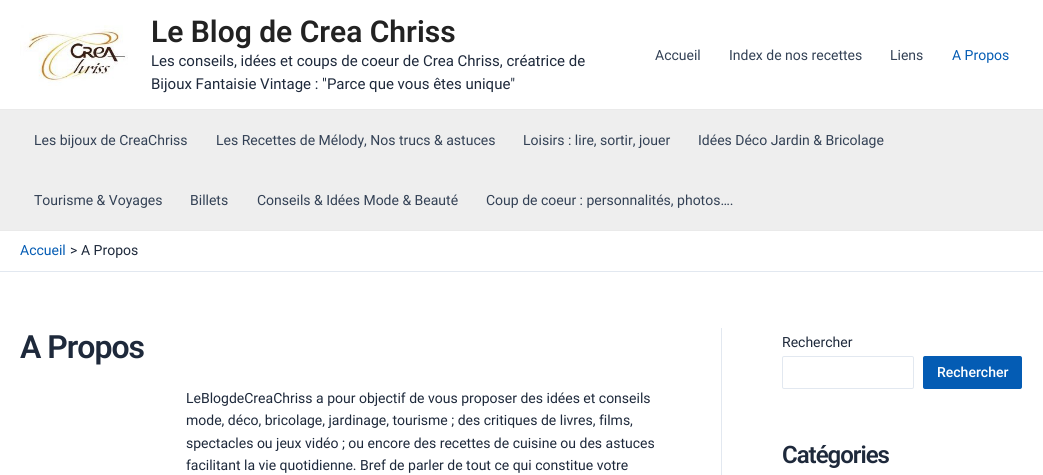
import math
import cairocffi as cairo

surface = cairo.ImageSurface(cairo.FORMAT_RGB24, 1043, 475)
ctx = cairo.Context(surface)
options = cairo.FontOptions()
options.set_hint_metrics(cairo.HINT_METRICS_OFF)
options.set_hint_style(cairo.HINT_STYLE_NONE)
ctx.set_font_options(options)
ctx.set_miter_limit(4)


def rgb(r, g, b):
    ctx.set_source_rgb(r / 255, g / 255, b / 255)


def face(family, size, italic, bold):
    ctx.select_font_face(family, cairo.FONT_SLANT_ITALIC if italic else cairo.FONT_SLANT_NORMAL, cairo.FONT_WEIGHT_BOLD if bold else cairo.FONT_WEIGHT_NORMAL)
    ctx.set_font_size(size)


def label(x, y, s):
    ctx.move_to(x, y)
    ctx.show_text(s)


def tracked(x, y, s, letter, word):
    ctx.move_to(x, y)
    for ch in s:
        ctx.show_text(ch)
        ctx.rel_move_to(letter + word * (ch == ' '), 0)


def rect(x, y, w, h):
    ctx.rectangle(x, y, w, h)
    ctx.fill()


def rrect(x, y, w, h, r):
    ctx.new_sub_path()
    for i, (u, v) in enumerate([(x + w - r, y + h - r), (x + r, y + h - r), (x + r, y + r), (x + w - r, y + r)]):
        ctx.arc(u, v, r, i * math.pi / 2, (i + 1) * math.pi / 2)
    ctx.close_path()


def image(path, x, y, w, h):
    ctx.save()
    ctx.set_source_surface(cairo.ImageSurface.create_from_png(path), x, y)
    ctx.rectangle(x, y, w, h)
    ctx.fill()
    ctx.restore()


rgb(255, 255, 255)
ctx.paint()
rgb(234, 234, 234)
rect(0, 109, 1043, 1)
image('image0.png', 20, 25, 108, 61)
face('Roboto SemiBold', 30, 0, 0)
rgb(34, 34, 34)
label(151, 42, 'Le Blog de Crea Chriss')
face('Roboto', 15, 0, 0)
rgb(30, 41, 59)
label(151, 66, 'Les conseils, idées et coups de coeur de Crea Chriss, créatrice de')
label(151, 89, 'Bijoux Fantaisie Vintage : "Parce que vous êtes unique"')
face('Roboto', 14, 0, 0)
rgb(51, 65, 85)
label(655, 60, 'Accueil')
label(729, 60, 'Index de nos recettes')
label(890, 60, 'Liens')
rgb(4, 92, 180)
label(952, 60, 'A Propos')
rgb(238, 238, 238)
rect(0, 110, 1043, 120)
rgb(234, 234, 234)
rect(0, 230, 1043, 1)
rgb(51, 65, 85)
label(34, 145, 'Les bijoux de CreaChriss')
label(216, 145, 'Les Recettes de Mélody, Nos trucs & astuces')
label(523, 145, 'Loisirs : lire, sortir, jouer')
label(698, 145, 'Idées Déco Jardin & Bricolage')
label(34, 205, 'Tourisme & Voyages')
label(190, 205, 'Billets')
label(257, 205, 'Conseils & Idées Mode & Beauté')
label(486, 205, 'Coup de coeur : personnalités, photos….')
rgb(226, 232, 240)
rect(0, 271, 1043, 1)
rgb(4, 92, 180)
label(20, 255, 'Accueil')
rgb(30, 41, 59)
label(70, 255, '>')
label(81, 255, 'A Propos')
rgb(226, 232, 240)
rect(721, 328, 1, 147)
face('Roboto SemiBold', 32, 0, 0)
rgb(30, 41, 59)
tracked(20, 358, 'A Propos', -1, 0)
face('Roboto', 14, 0, 0)
label(186, 403, 'LeBlogdeCreaChriss a pour objectif de vous proposer des idées et conseils')
label(186, 425, 'mode, déco, bricolage, jardinage, tourisme ; des critiques de livres, films,')
label(186, 448, 'spectacles ou jeux vidéo ; ou encore des recettes de cuisine ou des astuces')
label(186, 470, 'facilitant la vie quotidienne. Bref de parler de tout ce qui constitue votre')
label(782, 347, 'Rechercher')
rrect(782.5, 356.5, 131, 32, 1.5)
rgb(226, 232, 240)
ctx.set_line_width(1)
ctx.stroke()
rgb(4, 92, 180)
rrect(923, 356, 99, 33, 2)
ctx.fill()
face('Roboto Medium', 14, 0, 0)
rgb(255, 255, 255)
label(937, 377, 'Rechercher')
face('Roboto SemiBold', 24, 0, 0)
rgb(30, 41, 59)
tracked(782, 463, 'Catégories', -1, 0)
surface.write_to_png('render.png')
